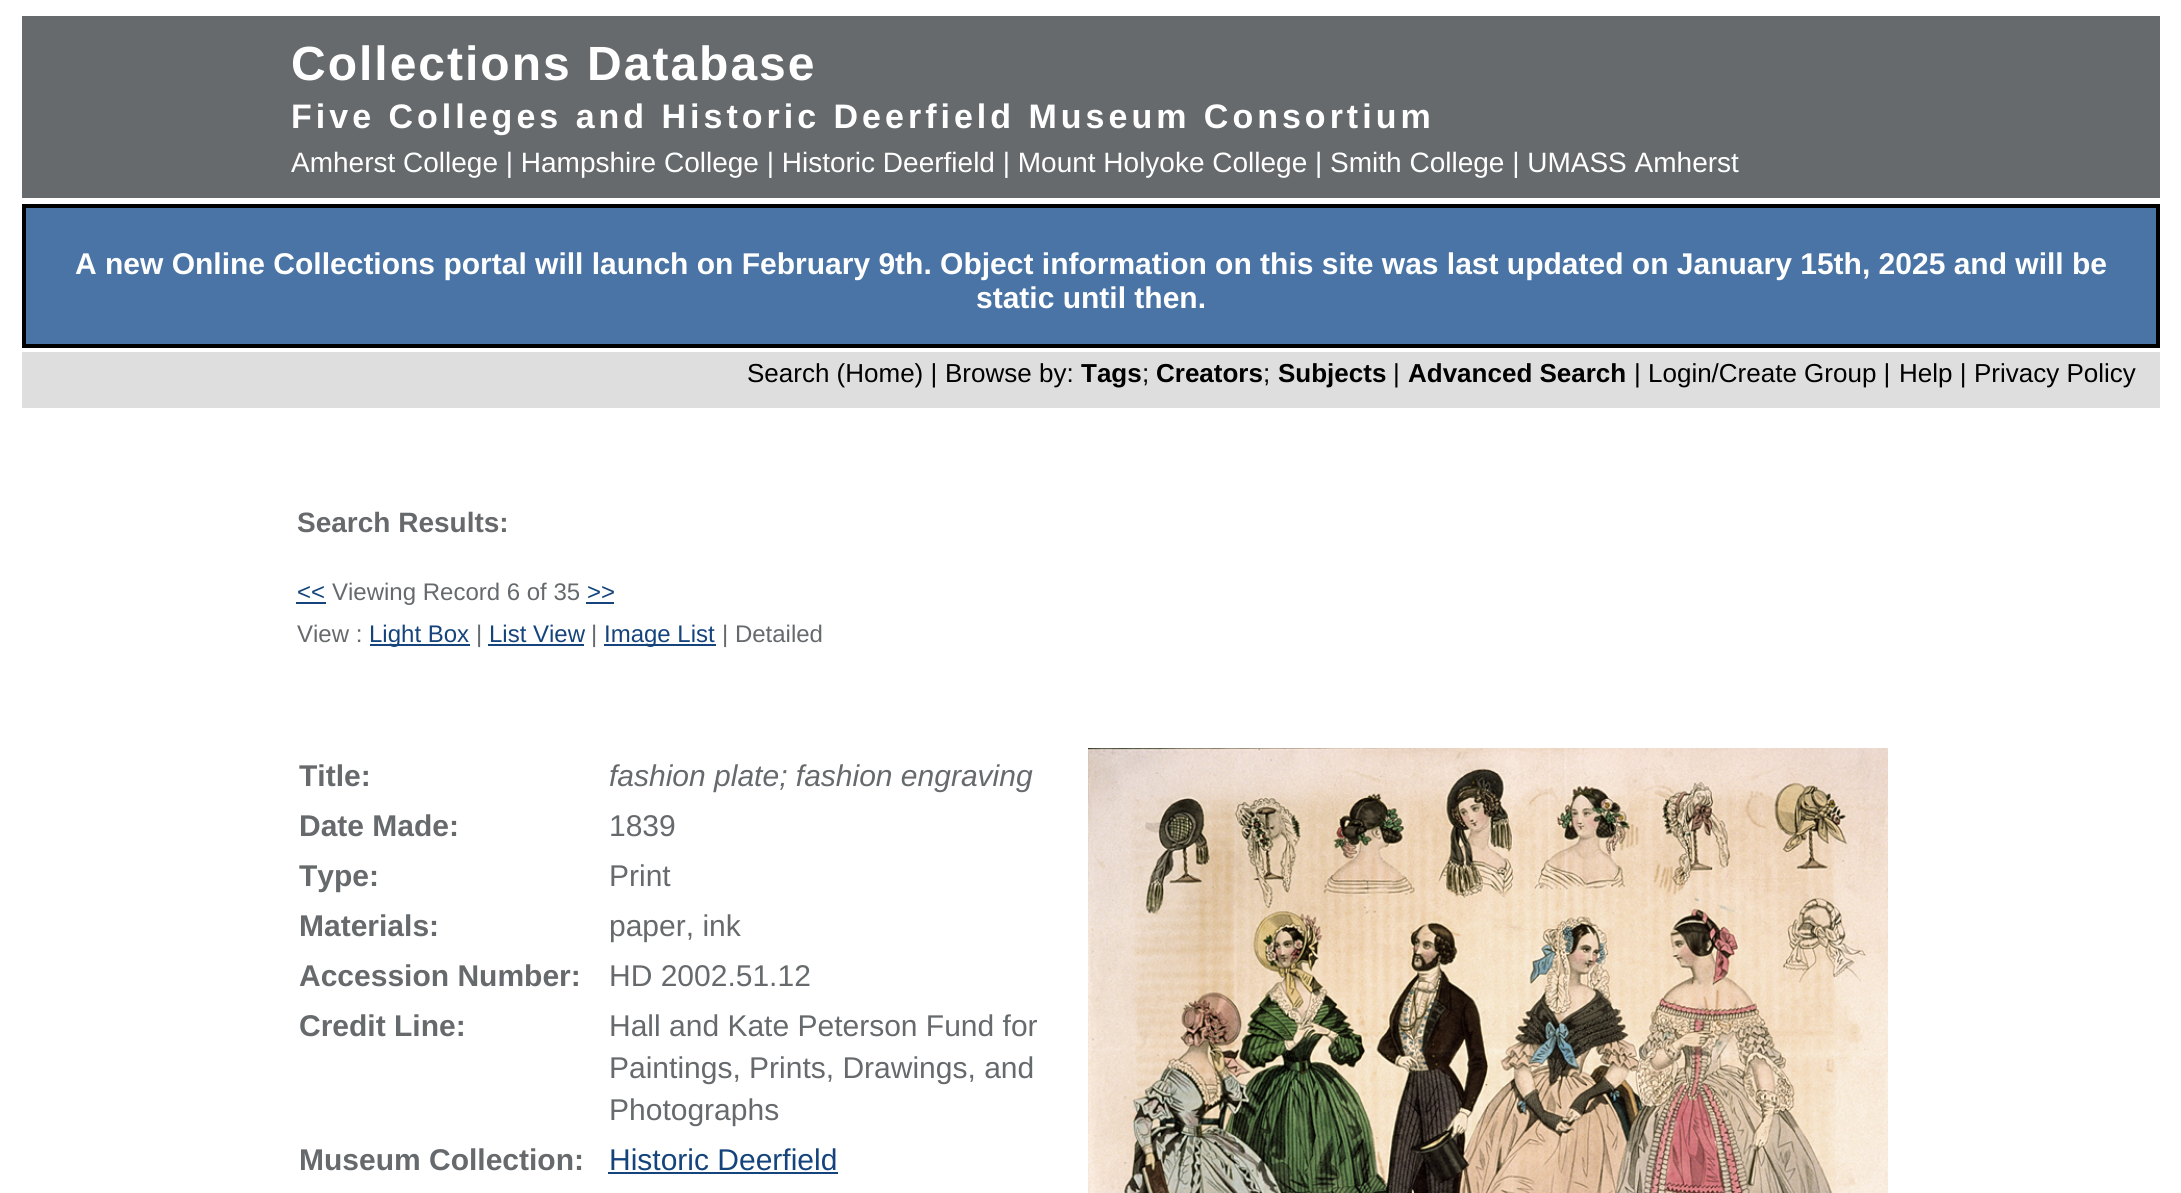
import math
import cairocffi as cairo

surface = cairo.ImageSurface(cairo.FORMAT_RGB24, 2181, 1193)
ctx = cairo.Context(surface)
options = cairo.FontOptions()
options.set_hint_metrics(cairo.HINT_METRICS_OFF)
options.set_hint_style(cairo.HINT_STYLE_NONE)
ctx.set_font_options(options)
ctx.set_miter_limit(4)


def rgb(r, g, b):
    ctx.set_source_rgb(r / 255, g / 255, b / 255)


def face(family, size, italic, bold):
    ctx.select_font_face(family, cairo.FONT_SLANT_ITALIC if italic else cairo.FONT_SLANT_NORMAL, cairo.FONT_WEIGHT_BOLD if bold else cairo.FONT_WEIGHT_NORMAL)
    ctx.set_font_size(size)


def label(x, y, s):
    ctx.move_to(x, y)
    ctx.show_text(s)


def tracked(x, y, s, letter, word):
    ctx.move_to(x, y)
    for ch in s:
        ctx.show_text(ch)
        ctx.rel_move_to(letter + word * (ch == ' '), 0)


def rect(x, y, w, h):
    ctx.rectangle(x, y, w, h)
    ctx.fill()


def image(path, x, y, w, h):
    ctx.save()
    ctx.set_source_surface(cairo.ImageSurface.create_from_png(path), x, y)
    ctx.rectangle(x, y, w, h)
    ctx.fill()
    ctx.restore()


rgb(255, 255, 255)
ctx.paint()
rgb(102, 106, 108)
rect(22, 16, 2138, 182)
face('Liberation Sans', 48, 0, 1)
rgb(255, 255, 255)
tracked(291, 80, 'Collections Database', 2, 0)
face('Liberation Sans', 34, 0, 1)
tracked(291, 128, 'Five Colleges and Historic Deerfield Museum Consortium', 4, 0)
face('Liberation Sans', 28, 0, 0)
label(291, 172, 'Amherst College | Hampshire College | Historic Deerfield | Mount Holyoke College | Smith College | UMASS Amherst')
rgb(73, 116, 165)
ctx.rectangle(24, 206, 2134, 140)
ctx.fill_preserve()
rgb(0, 0, 0)
ctx.set_line_width(4)
ctx.stroke()
face('Liberation Sans', 30, 0, 1)
rgb(255, 255, 255)
label(75, 274, 'A new Online Collections portal will launch on February 9th. Object information on this site was last updated on January 15th, 2025 and will be')
label(976, 308, 'static until then.')
rgb(222, 222, 222)
rect(22, 352, 2138, 56)
face('Liberation Sans', 26, 0, 0)
rgb(0, 0, 0)
label(747, 382, 'Search (Home) |')
label(945, 382, 'Browse by:')
face('Liberation Sans', 26, 0, 1)
label(1081, 382, 'Tags')
face('Liberation Sans', 26, 0, 0)
label(1142, 382, ';')
face('Liberation Sans', 26, 0, 1)
label(1156, 382, 'Creators')
face('Liberation Sans', 26, 0, 0)
label(1263, 382, ';')
face('Liberation Sans', 26, 0, 1)
label(1278, 382, 'Subjects')
face('Liberation Sans', 26, 0, 0)
label(1393, 382, '|')
face('Liberation Sans', 26, 0, 1)
label(1408, 382, 'Advanced Search')
face('Liberation Sans', 26, 0, 0)
label(1634, 382, '|')
label(1648, 382, 'Login/Create Group |')
label(1899, 382, 'Help |')
label(1974, 382, 'Privacy Policy')
face('Liberation Sans', 28, 0, 1)
rgb(102, 106, 108)
label(297, 532, 'Search Results:')
face('Liberation Sans', 24, 0, 0)
rgb(21, 68, 124)
label(297, 600, '<<')
rect(296, 602, 30, 2)
rgb(102, 106, 108)
label(332, 600, 'Viewing Record 6 of 35')
rgb(21, 68, 124)
label(587, 600, '>>')
rect(586, 602, 28, 2)
rgb(102, 106, 108)
label(297, 642, 'View :')
rgb(21, 68, 124)
rect(370, 644, 100, 2)
label(369, 642, 'Light Box')
rgb(102, 106, 108)
label(476, 642, '|')
rgb(21, 68, 124)
label(489, 642, 'List View')
rect(488, 644, 96, 2)
rgb(102, 106, 108)
label(591, 642, '|')
rgb(21, 68, 124)
rect(604, 644, 112, 2)
label(604, 642, 'Image List')
rgb(102, 106, 108)
label(722, 642, '| Detailed')
face('Liberation Sans', 30, 0, 1)
label(299, 786, 'Title:')
face('Liberation Sans', 30, 1, 0)
label(609, 786, 'fashion plate; fashion engraving')
face('Liberation Sans', 30, 0, 1)
label(299, 836, 'Date Made:')
face('Liberation Sans', 30, 0, 0)
label(609, 836, '1839')
face('Liberation Sans', 30, 0, 1)
label(299, 886, 'Type:')
face('Liberation Sans', 30, 0, 0)
label(609, 886, 'Print')
face('Liberation Sans', 30, 0, 1)
label(299, 936, 'Materials:')
face('Liberation Sans', 30, 0, 0)
label(609, 936, 'paper, ink')
face('Liberation Sans', 30, 0, 1)
label(299, 986, 'Accession Number:')
face('Liberation Sans', 30, 0, 0)
label(609, 986, 'HD 2002.51.12')
face('Liberation Sans', 30, 0, 1)
label(299, 1036, 'Credit Line:')
face('Liberation Sans', 30, 0, 0)
label(609, 1036, 'Hall and Kate Peterson Fund for')
label(609, 1078, 'Paintings, Prints, Drawings, and')
label(609, 1120, 'Photographs')
face('Liberation Sans', 30, 0, 1)
label(299, 1170, 'Museum Collection:')
face('Liberation Sans', 30, 0, 0)
rgb(21, 68, 124)
label(609, 1170, 'Historic Deerfield')
rect(608, 1172, 230, 2)
image('image0.png', 1088, 748, 800, 445)
surface.write_to_png('render.png')
